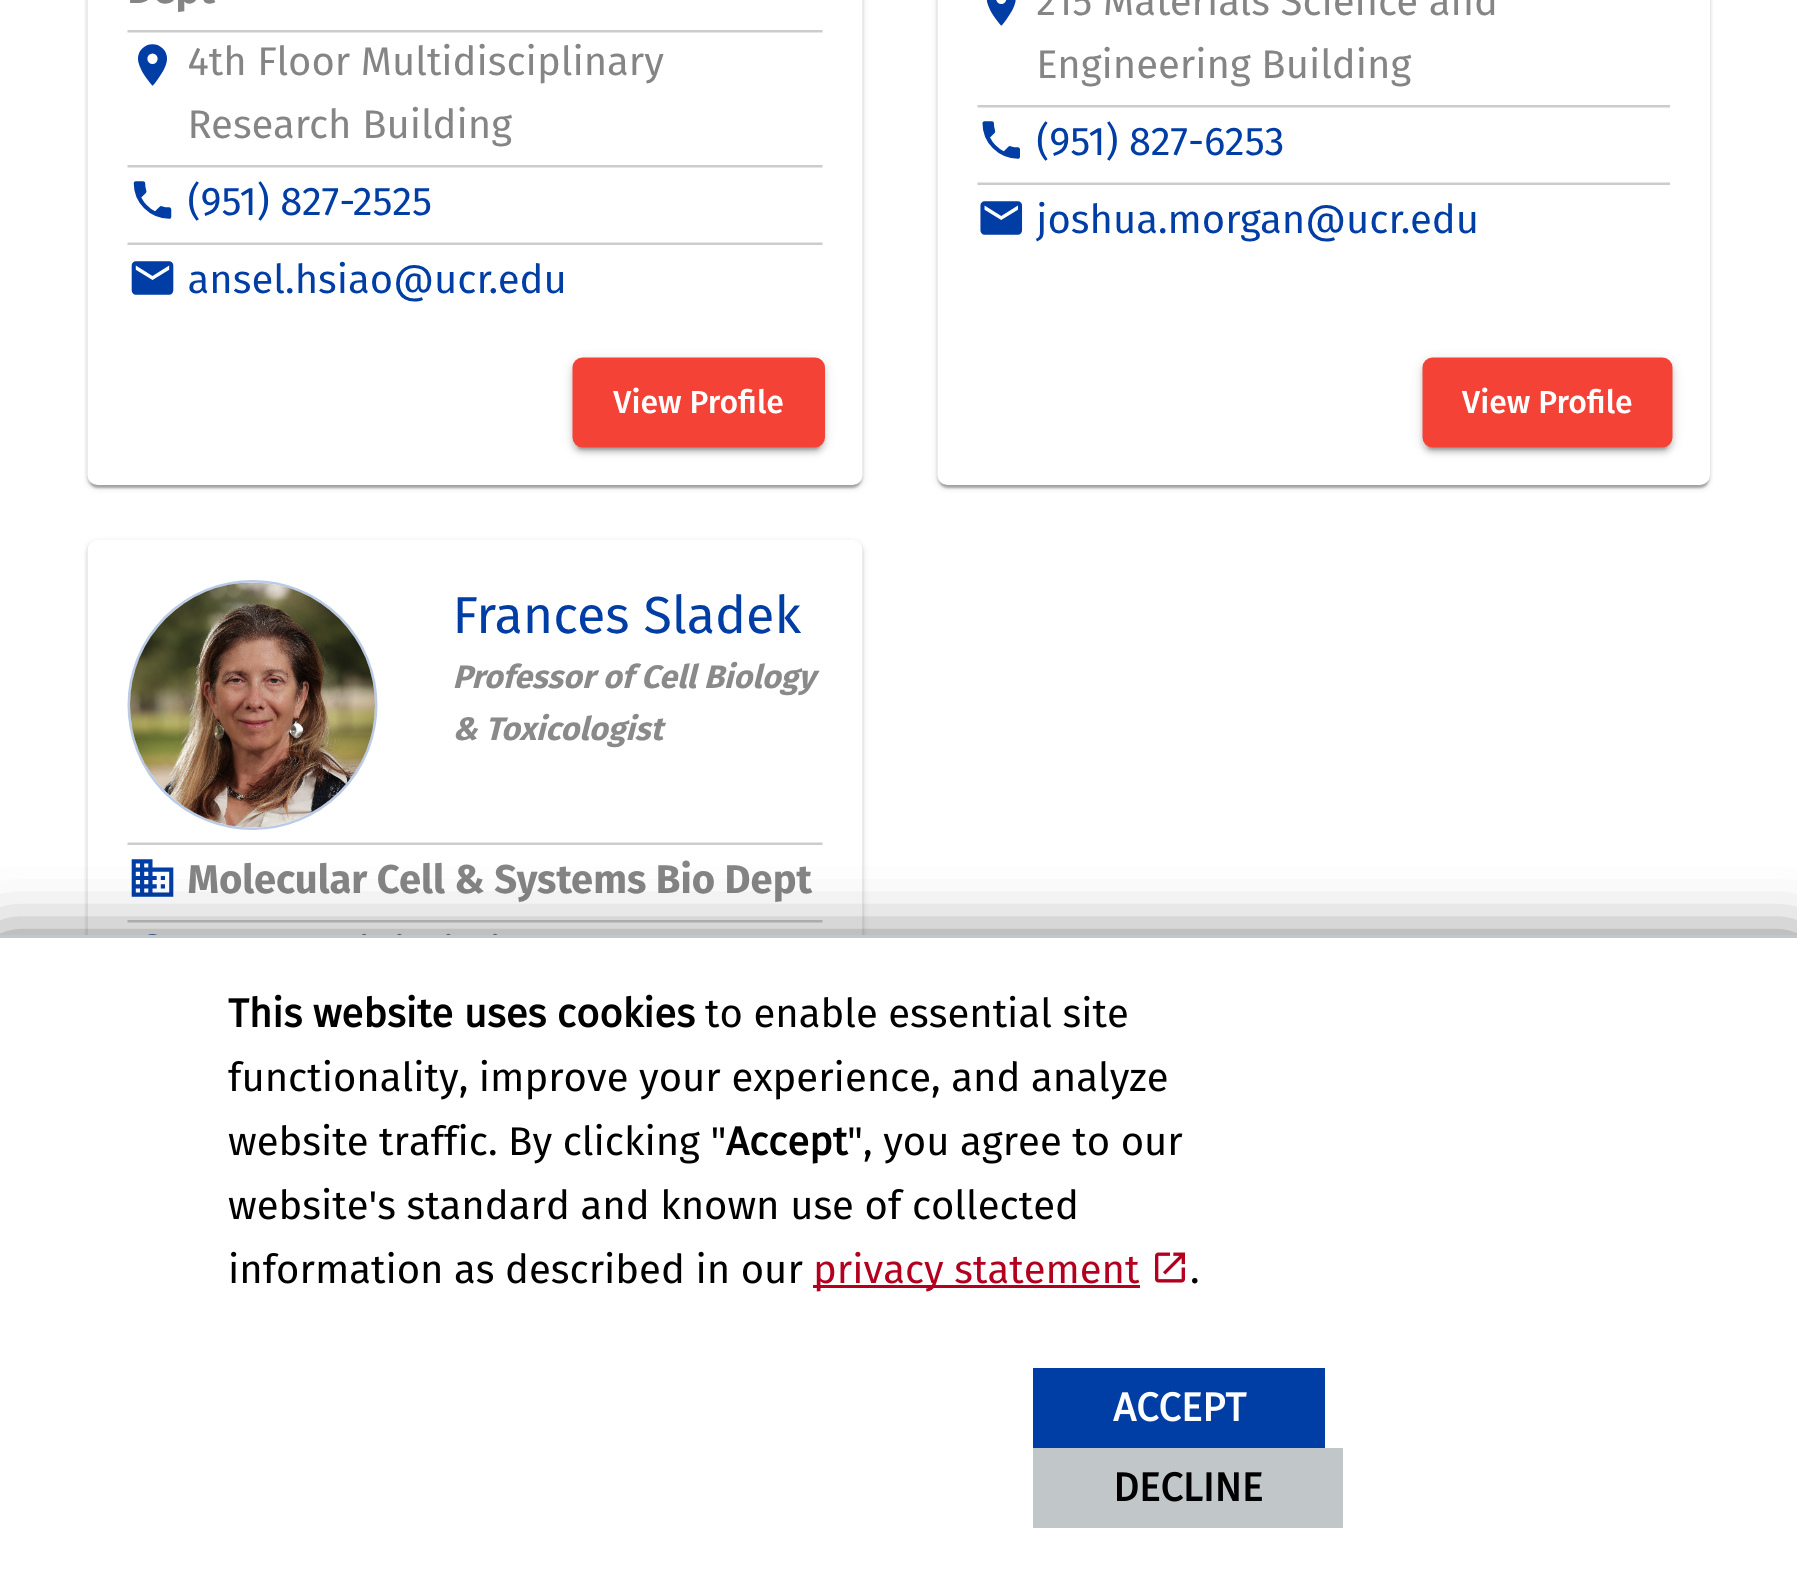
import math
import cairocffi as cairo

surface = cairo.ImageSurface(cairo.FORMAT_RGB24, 1797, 1588)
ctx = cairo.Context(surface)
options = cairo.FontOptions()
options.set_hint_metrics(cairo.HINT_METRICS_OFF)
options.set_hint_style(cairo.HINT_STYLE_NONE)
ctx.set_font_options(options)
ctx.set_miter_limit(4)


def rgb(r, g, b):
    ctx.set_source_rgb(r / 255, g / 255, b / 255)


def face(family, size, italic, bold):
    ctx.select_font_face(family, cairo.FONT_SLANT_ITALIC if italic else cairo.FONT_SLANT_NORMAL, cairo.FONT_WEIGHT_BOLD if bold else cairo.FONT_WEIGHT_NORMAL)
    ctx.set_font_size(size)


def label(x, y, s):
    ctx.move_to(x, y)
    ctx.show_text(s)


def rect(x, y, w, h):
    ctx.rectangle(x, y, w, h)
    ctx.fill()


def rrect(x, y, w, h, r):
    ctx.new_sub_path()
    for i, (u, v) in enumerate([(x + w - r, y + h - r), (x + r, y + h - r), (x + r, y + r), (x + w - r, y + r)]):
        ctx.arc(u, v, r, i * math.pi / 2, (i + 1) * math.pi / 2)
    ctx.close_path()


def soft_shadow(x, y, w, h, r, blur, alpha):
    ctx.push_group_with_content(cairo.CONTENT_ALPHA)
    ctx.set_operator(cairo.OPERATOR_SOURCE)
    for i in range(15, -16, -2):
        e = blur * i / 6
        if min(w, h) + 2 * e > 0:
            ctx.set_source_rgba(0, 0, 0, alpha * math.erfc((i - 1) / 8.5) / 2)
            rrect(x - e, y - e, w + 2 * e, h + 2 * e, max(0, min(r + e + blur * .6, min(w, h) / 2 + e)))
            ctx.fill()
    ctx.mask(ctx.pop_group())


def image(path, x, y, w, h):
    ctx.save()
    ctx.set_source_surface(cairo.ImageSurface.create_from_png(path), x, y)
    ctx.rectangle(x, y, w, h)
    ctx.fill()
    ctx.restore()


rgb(255, 255, 255)
ctx.paint()
image('image0.png', 84, 0, 1629, 935)
rgb(2, 2, 3)
soft_shadow(0, 960, 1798, 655, 0, 37.5, 1)
rgb(255, 255, 255)
rect(0, 938, 1797, 650)
rgb(193, 198, 200)
rect(0, 935, 1797, 3)
face('Fira Sans', 40, 0, 1)
rgb(0, 0, 0)
label(228, 1027, 'This website uses cookies')
face('Fira Sans', 40, 0, 0)
label(705, 1027, 'to enable essential site')
label(228, 1091, 'functionality, improve your experience, and analyze')
label(228, 1155, 'website traffic. By clicking "')
face('Fira Sans', 40, 0, 1)
label(726, 1155, 'Accept')
face('Fira Sans', 40, 0, 0)
label(847, 1155, '", you agree to our')
label(228, 1219, 'website\'s standard and known use of collected')
label(228, 1283, 'information as described in our')
rgb(180, 0, 31)
rect(813, 1285, 327, 3)
label(813, 1283, 'privacy statement')
image('image1.png', 1155, 1252, 30, 31)
rgb(0, 0, 0)
label(1190, 1283, '.')
rgb(0, 61, 165)
rect(1033, 1368, 292, 80)
face('Fira Sans', 40, 0, 1)
rgb(254, 254, 254)
label(1113, 1421, 'ACCEPT')
rgb(193, 198, 200)
rect(1033, 1448, 310, 80)
rgb(0, 0, 0)
label(1113, 1501, 'DECLINE')
surface.write_to_png('render.png')
